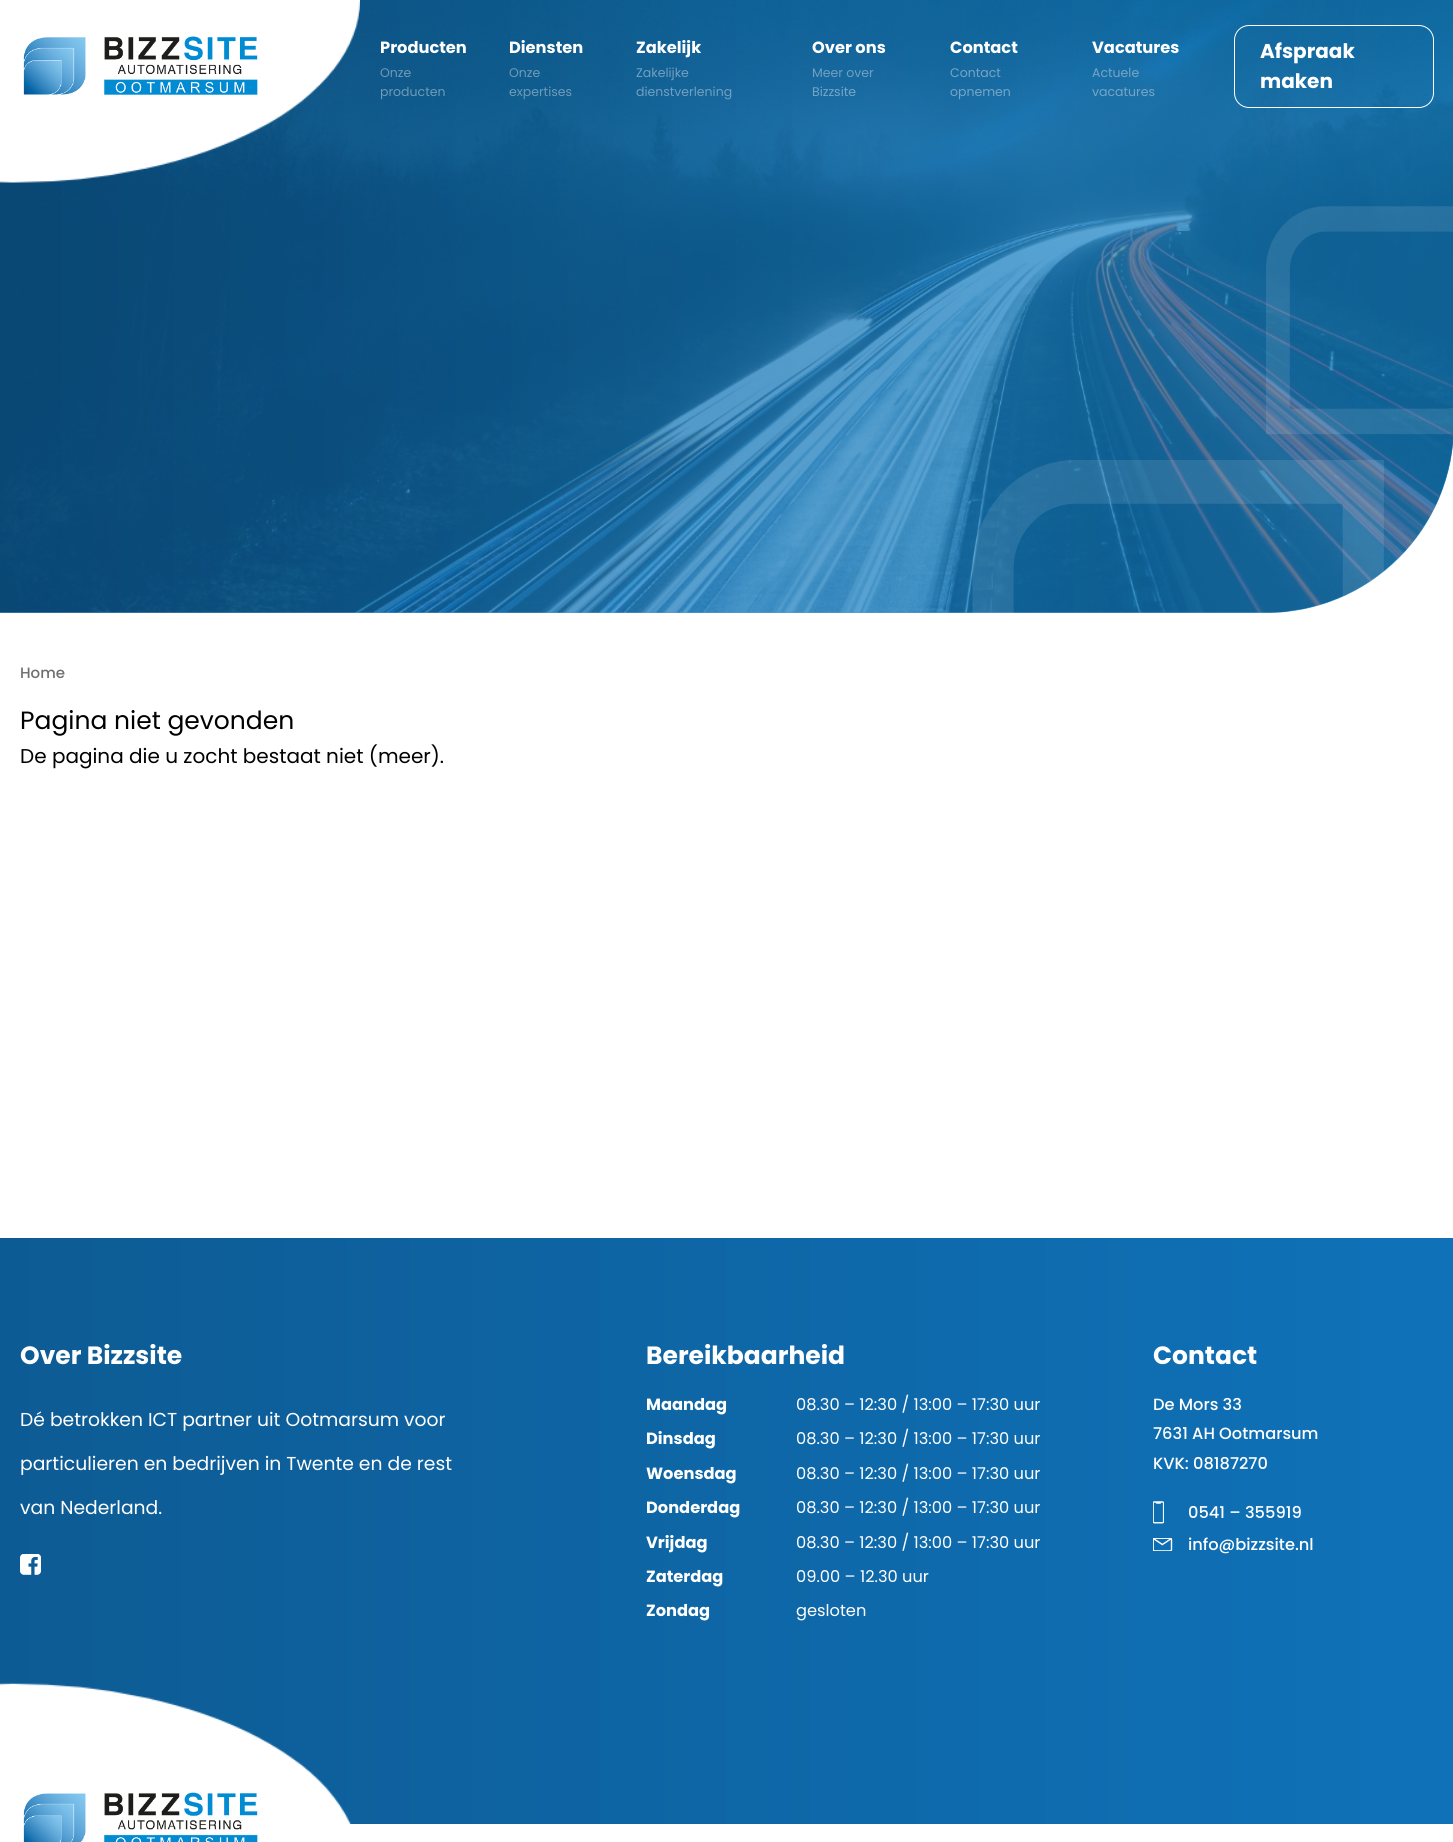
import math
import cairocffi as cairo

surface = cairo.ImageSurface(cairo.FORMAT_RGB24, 1453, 1842)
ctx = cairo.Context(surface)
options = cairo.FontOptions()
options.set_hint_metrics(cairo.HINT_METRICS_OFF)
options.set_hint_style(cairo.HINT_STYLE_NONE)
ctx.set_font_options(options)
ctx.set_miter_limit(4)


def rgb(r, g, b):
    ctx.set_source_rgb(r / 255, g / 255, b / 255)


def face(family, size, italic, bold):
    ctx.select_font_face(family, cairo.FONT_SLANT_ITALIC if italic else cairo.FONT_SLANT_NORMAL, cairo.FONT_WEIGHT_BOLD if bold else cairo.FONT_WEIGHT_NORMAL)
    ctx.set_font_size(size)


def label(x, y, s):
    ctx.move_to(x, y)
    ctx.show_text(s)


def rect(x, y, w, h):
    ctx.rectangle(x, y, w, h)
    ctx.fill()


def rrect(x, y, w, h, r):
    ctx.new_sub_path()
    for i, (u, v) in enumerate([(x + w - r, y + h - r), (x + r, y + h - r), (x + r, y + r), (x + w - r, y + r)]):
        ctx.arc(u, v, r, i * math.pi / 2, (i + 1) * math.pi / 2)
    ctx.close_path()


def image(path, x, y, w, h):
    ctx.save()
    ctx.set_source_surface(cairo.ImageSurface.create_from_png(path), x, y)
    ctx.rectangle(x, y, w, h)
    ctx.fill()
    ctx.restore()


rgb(255, 255, 255)
ctx.paint()
image('image0.png', 0, 0, 1453, 613)
gradient = cairo.LinearGradient(0, 306, 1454, 306)
gradient.add_color_stop_rgba(0, 0.051, 0.4, 0.651, 0.7)
gradient.add_color_stop_rgba(1, 0.086, 0.545, 0.824, 0.7)
ctx.set_source(gradient)
ctx.new_path()
ctx.move_to(0, 0)
ctx.line_to(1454, 0)
ctx.line_to(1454, 425)
ctx.curve_to(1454, 529, 1370, 613, 1266, 613)
ctx.line_to(0, 613)
ctx.close_path()
ctx.fill()
image('image1.png', 0, 0, 360, 183)
image('image2.png', 23, 36, 235, 59)
face('Poppins', 16.25, 0, 1)
rgb(255, 255, 255)
label(380, 53, 'Producten')
face('Poppins', 12.5, 0, 0)
rgb(111, 155, 184)
label(380, 77, 'Onze')
label(380, 96, 'producten')
face('Poppins', 16.25, 0, 1)
rgb(255, 255, 255)
label(509, 53, 'Diensten')
face('Poppins', 12.5, 0, 0)
rgb(111, 155, 184)
label(509, 77, 'Onze')
label(509, 96, 'expertises')
face('Poppins', 16.25, 0, 1)
rgb(255, 255, 255)
label(636, 53, 'Zakelijk')
face('Poppins', 12.5, 0, 0)
rgb(113, 160, 192)
label(636, 77, 'Zakelijke')
label(636, 96, 'dienstverlening')
face('Poppins', 16.25, 0, 1)
rgb(255, 255, 255)
label(812, 53, 'Over ons')
face('Poppins', 12.5, 0, 0)
rgb(113, 160, 192)
label(812, 77, 'Meer over')
rgb(117, 166, 198)
label(812, 96, 'Bizzsite')
face('Poppins', 16.25, 0, 1)
rgb(255, 255, 255)
label(950, 53, 'Contact')
face('Poppins', 12.5, 0, 0)
rgb(117, 166, 198)
label(950, 77, 'Contact')
label(950, 96, 'opnemen')
face('Poppins', 16.25, 0, 1)
rgb(255, 255, 255)
label(1092, 53, 'Vacatures')
face('Poppins', 12.5, 0, 0)
rgb(117, 166, 198)
label(1092, 77, 'Actuele')
label(1092, 96, 'vacatures')
rrect(1234.5, 25.5, 199, 82, 14.5)
rgb(255, 255, 255)
ctx.set_line_width(1)
ctx.stroke()
face('Poppins', 20, 0, 1)
label(1260, 58, 'Afspraak')
label(1260, 88, 'maken')
image('image3.png', 972, 206, 481, 407)
face('Poppins Medium', 15, 0, 0)
rgb(111, 111, 111)
label(20, 678, 'Home')
face('Poppins', 25, 0, 0)
rgb(0, 0, 0)
label(20, 729, 'Pagina niet gevonden')
face('Poppins', 20, 0, 0)
label(20, 763, 'De pagina die u zocht bestaat niet (meer).')
gradient = cairo.LinearGradient(0, 1531, 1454, 1531)
gradient.add_color_stop_rgba(0, 0.051, 0.357, 0.58, 1)
gradient.add_color_stop_rgba(1, 0.059, 0.447, 0.725, 1)
ctx.set_source(gradient)
rect(0, 1238, 1453, 586)
face('Poppins', 25, 0, 1)
rgb(255, 255, 255)
label(20, 1364, 'Over Bizzsite')
face('Poppins', 18.75, 0, 0)
label(20, 1426, 'Dé betrokken ICT partner uit Ootmarsum voor')
label(20, 1470, 'particulieren en bedrijven in Twente en de rest')
label(20, 1514, 'van Nederland.')
image('image4.png', 20, 1554, 21, 21)
face('Poppins', 25, 0, 1)
label(646, 1364, 'Bereikbaarheid')
face('Poppins', 16.25, 0, 1)
label(646, 1410, 'Maandag')
face('Poppins', 16.25, 0, 0)
label(796, 1410, '08.30 – 12:30 / 13:00 – 17:30 uur')
face('Poppins', 16.25, 0, 1)
label(646, 1444, 'Dinsdag')
face('Poppins', 16.25, 0, 0)
label(796, 1444, '08.30 – 12:30 / 13:00 – 17:30 uur')
face('Poppins', 16.25, 0, 1)
label(646, 1479, 'Woensdag')
face('Poppins', 16.25, 0, 0)
label(796, 1479, '08.30 – 12:30 / 13:00 – 17:30 uur')
face('Poppins', 16.25, 0, 1)
label(646, 1513, 'Donderdag')
face('Poppins', 16.25, 0, 0)
label(796, 1513, '08.30 – 12:30 / 13:00 – 17:30 uur')
face('Poppins', 16.25, 0, 1)
label(646, 1548, 'Vrijdag')
face('Poppins', 16.25, 0, 0)
label(796, 1548, '08.30 – 12:30 / 13:00 – 17:30 uur')
face('Poppins', 16.25, 0, 1)
label(646, 1582, 'Zaterdag')
face('Poppins', 16.25, 0, 0)
label(796, 1582, '09.00 – 12.30 uur')
face('Poppins', 16.25, 0, 1)
label(646, 1616, 'Zondag')
face('Poppins', 16.25, 0, 0)
label(796, 1616, 'gesloten')
face('Poppins', 25, 0, 1)
label(1153, 1364, 'Contact')
face('Poppins Medium', 16.25, 0, 0)
label(1153, 1410, 'De Mors 33')
label(1153, 1439, '7631 AH Ootmarsum')
label(1153, 1469, 'KVK: 08187270')
image('image5.png', 1153, 1501, 11, 23)
label(1188, 1518, '0541 – 355919')
image('image6.png', 1153, 1538, 20, 13)
label(1188, 1550, 'info@bizzsite.nl')
image('image7.png', 0, 1683, 352, 141)
image('image8.png', 23, 1792, 235, 50)
surface.write_to_png('render.png')
